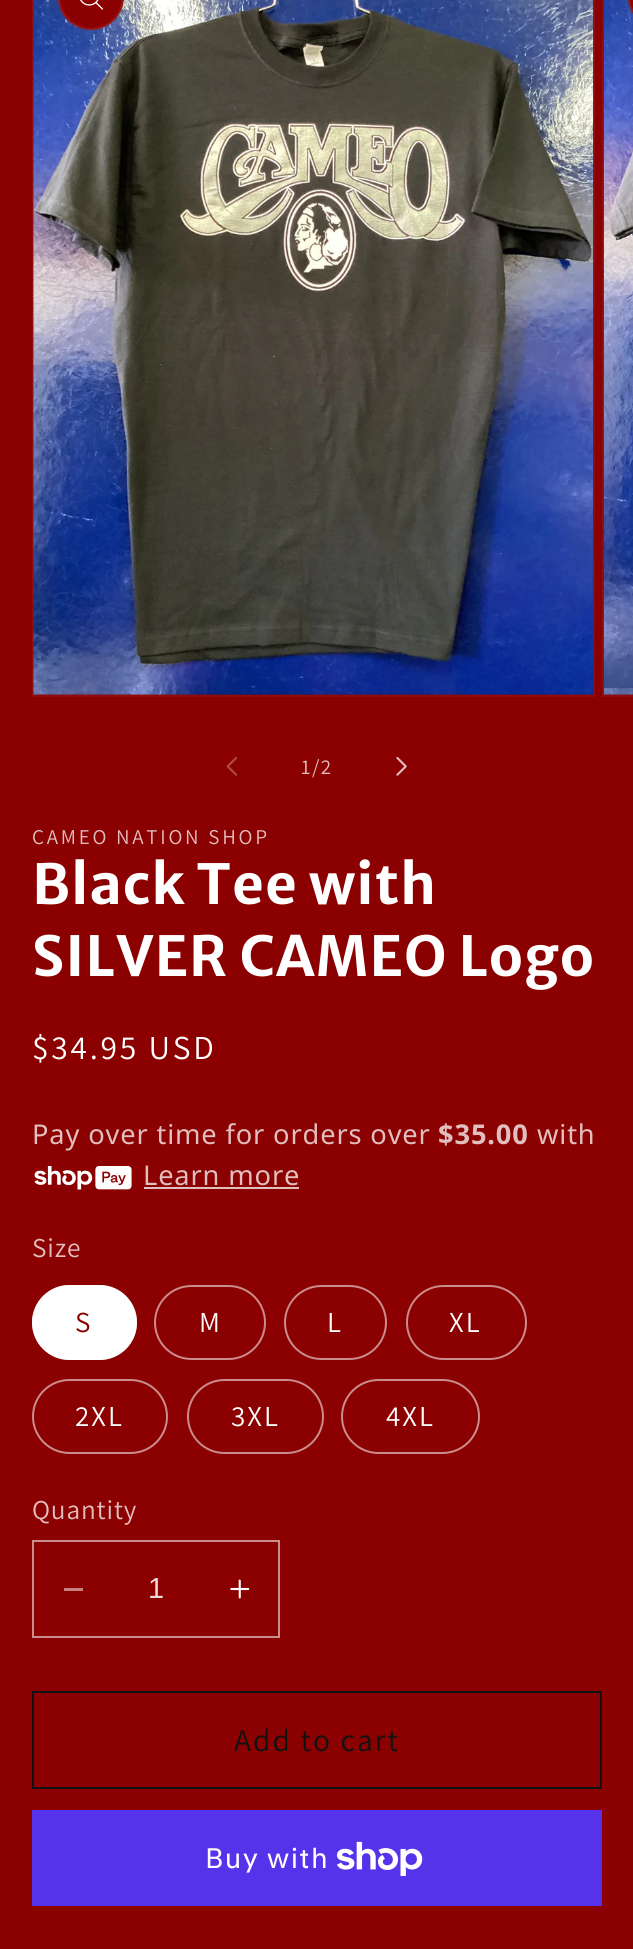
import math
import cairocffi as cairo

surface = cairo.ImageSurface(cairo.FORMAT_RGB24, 633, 1949)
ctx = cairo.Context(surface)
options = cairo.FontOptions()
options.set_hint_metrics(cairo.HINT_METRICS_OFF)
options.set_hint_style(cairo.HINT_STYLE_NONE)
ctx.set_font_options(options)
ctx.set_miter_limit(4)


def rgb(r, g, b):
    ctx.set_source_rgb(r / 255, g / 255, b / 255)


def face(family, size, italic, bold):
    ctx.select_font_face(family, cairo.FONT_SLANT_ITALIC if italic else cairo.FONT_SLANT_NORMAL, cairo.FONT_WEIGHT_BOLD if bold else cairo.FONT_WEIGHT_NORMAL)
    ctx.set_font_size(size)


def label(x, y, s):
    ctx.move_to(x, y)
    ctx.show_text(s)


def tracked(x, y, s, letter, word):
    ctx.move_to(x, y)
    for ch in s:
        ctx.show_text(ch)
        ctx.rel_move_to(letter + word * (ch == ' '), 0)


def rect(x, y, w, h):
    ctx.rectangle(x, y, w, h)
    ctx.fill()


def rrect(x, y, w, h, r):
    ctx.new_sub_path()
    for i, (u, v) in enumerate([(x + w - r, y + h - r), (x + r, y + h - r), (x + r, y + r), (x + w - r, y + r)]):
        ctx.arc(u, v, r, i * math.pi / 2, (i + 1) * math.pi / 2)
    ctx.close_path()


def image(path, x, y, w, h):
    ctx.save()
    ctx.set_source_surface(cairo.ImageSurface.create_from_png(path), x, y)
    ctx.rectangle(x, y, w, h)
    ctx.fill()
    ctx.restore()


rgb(139, 0, 0)
ctx.paint()
ctx.rectangle(33, -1, 561, 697)
rgb(145, 13, 13)
ctx.stroke()
image('image1.png', 33, 0, 561, 695)
rgb(139, 0, 0)
rrect(58, -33, 66, 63, 33)
ctx.fill()
rrect(59, -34, 64, 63, 32)
ctx.set_source_rgba(1, 1, 1, 0.1)
ctx.stroke()
image('image0.png', 80, 0, 24, 10)
ctx.rectangle(603, -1, 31, 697)
rgb(145, 13, 13)
ctx.stroke()
image('image2.png', 603, 0, 30, 695)
rgb(139, 0, 0)
ctx.new_path()
ctx.move_to(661.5, -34)
ctx.line_to(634, -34)
ctx.line_to(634, 30)
ctx.line_to(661.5, 30)
ctx.curve_to(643, 30, 628, 15, 628, -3.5)
ctx.line_to(628, -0.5)
ctx.curve_to(628, -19, 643, -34, 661.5, -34)
ctx.close_path()
ctx.fill()
rrect(629, -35, 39, 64, 32.5)
ctx.set_source_rgba(1, 1, 1, 0.1)
ctx.stroke()
image('image3.png', 226, 757, 12, 19)
face('Assistant', 21, 0, 0)
rgb(226, 191, 191)
tracked(301, 774, '1/2', 1.5, 0)
image('image4.png', 396, 757, 11, 19)
tracked(32, 844, 'CAMEO NATION SHOP', 2.75, 0)
face('Merriweather Sans', 55.1, 0, 1)
rgb(255, 255, 255)
tracked(32, 904, 'Black Tee with', 1.1, 0)
tracked(32, 976, 'SILVER CAMEO Logo', 1.1, 0)
face('Assistant', 33.5, 0, 0)
tracked(32, 1059, '$34.95 USD', 2.75, 0)
face('Noto Sans', 27.25, 0, 0)
rgb(226, 191, 191)
tracked(32, 1144, 'Pay over time for orders over', 0.85, 0)
face('Noto Sans', 27.25, 0, 1)
tracked(438, 1144, '$35.00', 0.85, 0)
face('Noto Sans', 27.25, 0, 0)
tracked(537, 1144, 'with', 0.85, 0)
image('image5.png', 34, 1166, 98, 24)
tracked(143, 1185, 'Learn more', 0.85, 0)
rect(144, 1187, 155, 2)
face('Assistant', 27.25, 0, 0)
tracked(32, 1257, 'Size', 0.85, 0)
rgb(255, 255, 255)
rrect(32, 1285, 105, 75, 37.5)
ctx.fill()
rrect(33, 1286, 103, 73, 36.5)
ctx.set_source_rgba(1, 1, 1, 0.55)
ctx.stroke()
face('Assistant', 29, 0, 0)
rgb(139, 0, 0)
tracked(75, 1332, 'S', 2.1, 0)
rrect(155, 1286, 110, 73, 36.5)
rgb(203, 140, 140)
ctx.stroke()
rgb(255, 255, 255)
tracked(199, 1332, 'M', 2.1, 0)
rrect(285, 1286, 101, 73, 36.5)
rgb(203, 140, 140)
ctx.stroke()
rgb(255, 255, 255)
tracked(327, 1332, 'L', 2.1, 0)
rrect(407, 1286, 119, 73, 36.5)
rgb(203, 140, 140)
ctx.stroke()
rgb(255, 255, 255)
tracked(449, 1332, 'XL', 2.1, 0)
rrect(33, 1380, 134, 73, 36.5)
rgb(203, 140, 140)
ctx.stroke()
rgb(255, 255, 255)
tracked(75, 1426, '2XL', 2.1, 0)
rrect(188, 1380, 135, 73, 36.5)
rgb(203, 140, 140)
ctx.stroke()
rgb(255, 255, 255)
tracked(231, 1426, '3XL', 2.1, 0)
rrect(342, 1380, 137, 73, 36.5)
rgb(203, 140, 140)
ctx.stroke()
rgb(255, 255, 255)
tracked(386, 1426, '4XL', 2.1, 0)
face('Assistant', 27.25, 0, 0)
rgb(226, 191, 191)
tracked(32, 1519, 'Quantity', 0.85, 0)
rgb(197, 128, 128)
rect(64, 1588, 19, 3)
image('image6.png', 230, 1579, 20, 20)
ctx.rectangle(33, 1541, 246, 96)
rgb(203, 140, 140)
ctx.stroke()
face('Liberation Sans', 29, 0, 0)
rgb(238, 217, 217)
label(148, 1598, '1')
ctx.rectangle(33, 1692, 568, 96)
rgb(18, 18, 18)
ctx.stroke()
face('Assistant', 31.5, 0, 0)
tracked(234, 1751, 'Add to cart', 2.1, 0)
rgb(84, 51, 235)
rect(32, 1810, 570, 96)
face('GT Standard', 28, 0, 0)
rgb(255, 255, 255)
tracked(205, 1868, 'Buy with', 1.25, 0)
image('image7.png', 337, 1841, 86, 35)
surface.write_to_png('render.png')
